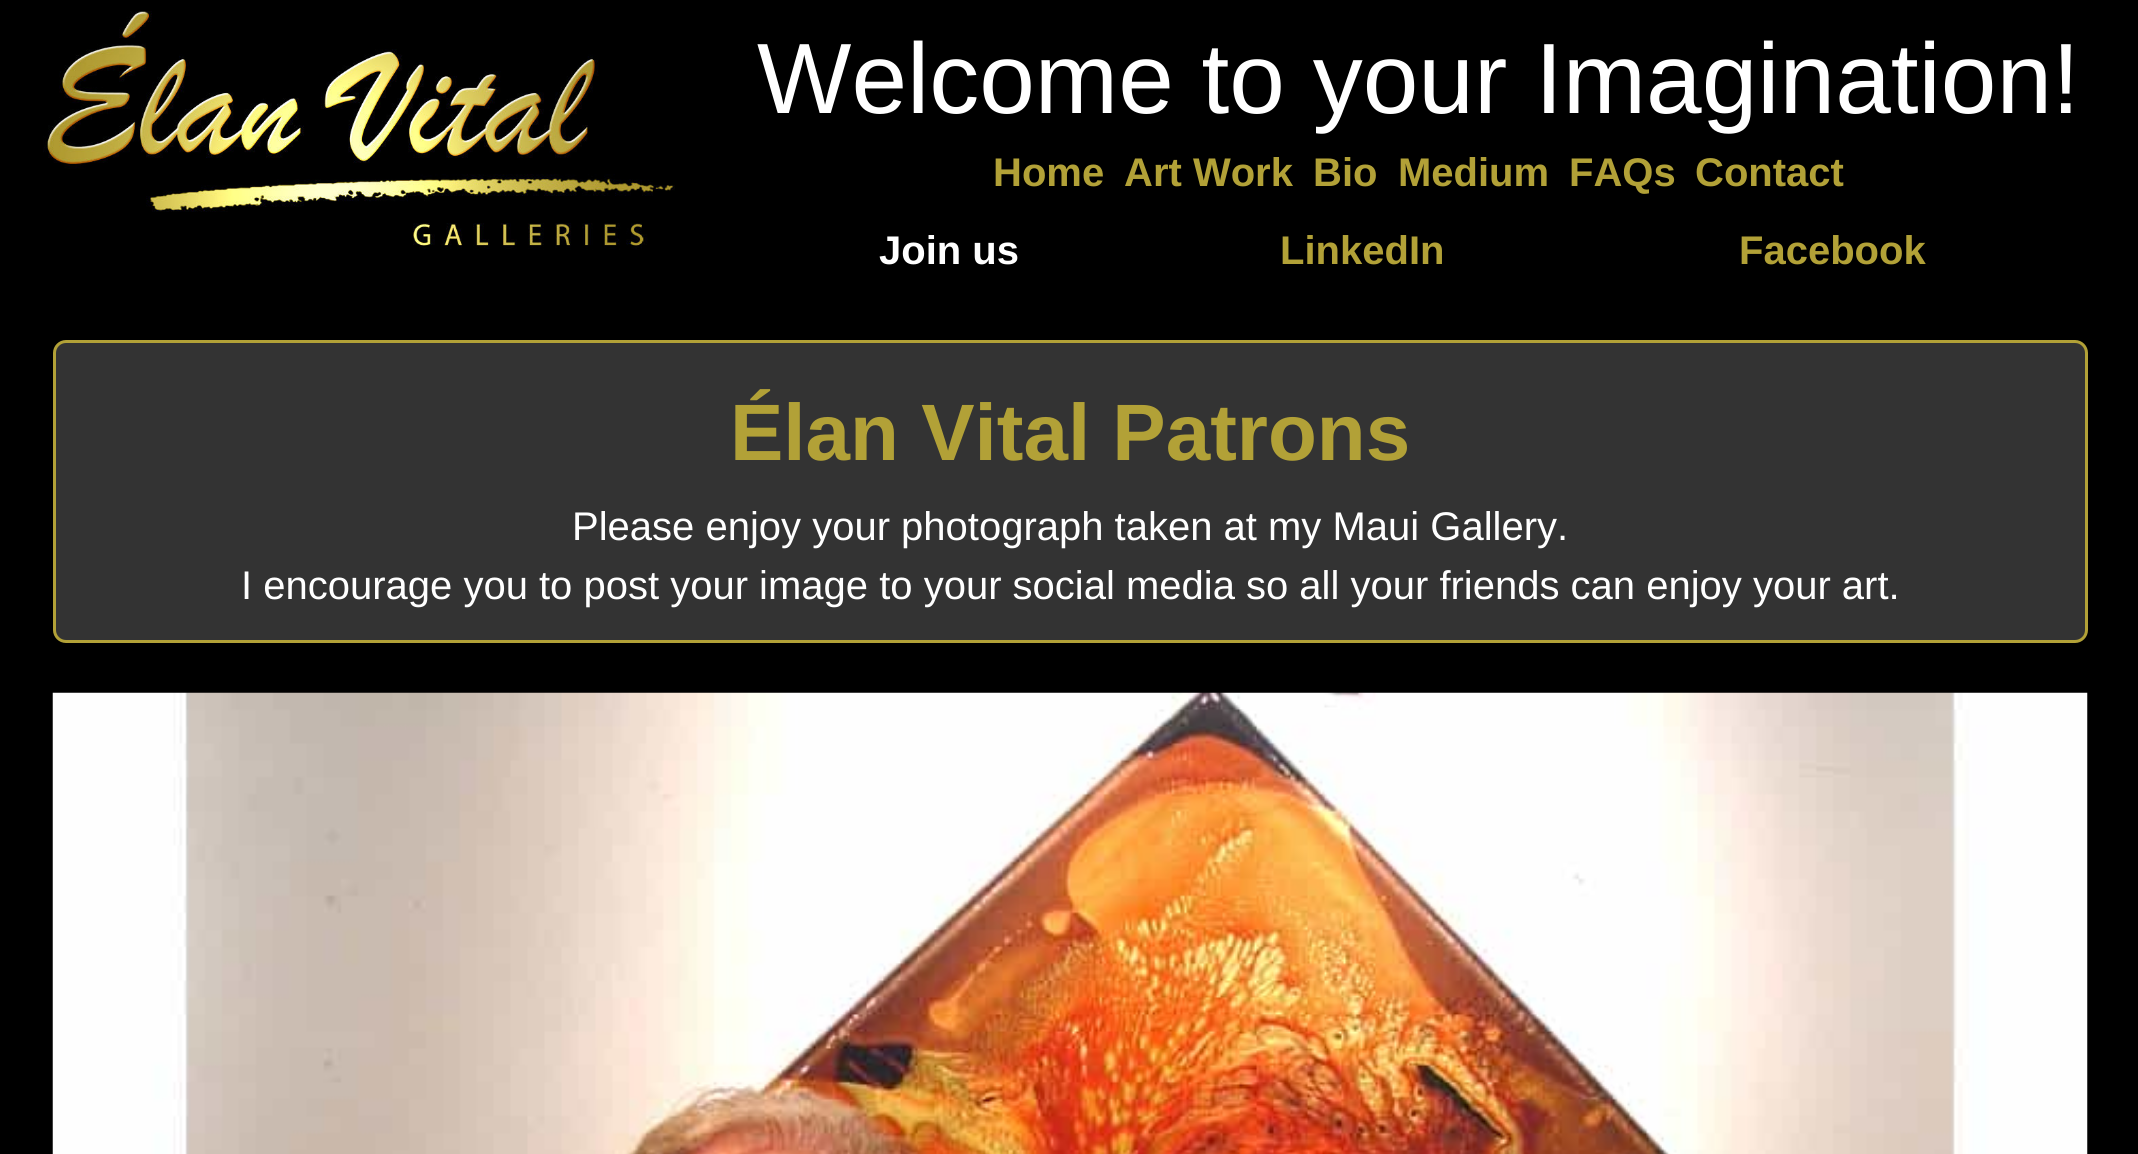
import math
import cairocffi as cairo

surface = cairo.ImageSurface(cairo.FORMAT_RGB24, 2138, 1154)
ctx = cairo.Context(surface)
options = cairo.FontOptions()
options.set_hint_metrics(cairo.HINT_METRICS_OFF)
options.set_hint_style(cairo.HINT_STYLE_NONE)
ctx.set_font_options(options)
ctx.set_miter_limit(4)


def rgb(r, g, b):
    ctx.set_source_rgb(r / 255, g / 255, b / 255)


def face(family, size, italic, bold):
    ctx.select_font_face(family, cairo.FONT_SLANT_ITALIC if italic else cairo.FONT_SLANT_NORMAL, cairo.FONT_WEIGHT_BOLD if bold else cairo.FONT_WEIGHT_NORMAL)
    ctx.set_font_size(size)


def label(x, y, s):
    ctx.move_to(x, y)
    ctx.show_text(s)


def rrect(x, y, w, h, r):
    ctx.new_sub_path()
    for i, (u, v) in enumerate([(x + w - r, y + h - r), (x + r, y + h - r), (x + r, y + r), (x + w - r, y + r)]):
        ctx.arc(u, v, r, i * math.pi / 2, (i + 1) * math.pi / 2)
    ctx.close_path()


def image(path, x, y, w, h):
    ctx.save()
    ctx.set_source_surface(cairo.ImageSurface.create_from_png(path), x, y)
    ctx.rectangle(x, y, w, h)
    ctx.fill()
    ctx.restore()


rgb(0, 0, 0)
ctx.paint()
image('image0.png', 43, 11, 632, 239)
face('Liberation Sans', 100, 0, 0)
rgb(255, 255, 255)
label(757, 113, 'Welcome to your Imagination!')
face('Liberation Sans', 40, 0, 1)
rgb(178, 161, 55)
label(993, 186, 'Home')
label(1124, 186, 'Art Work')
label(1313, 186, 'Bio')
label(1398, 186, 'Medium')
label(1569, 186, 'FAQs')
label(1695, 186, 'Contact')
rgb(255, 255, 255)
label(879, 264, 'Join us')
rgb(178, 161, 55)
label(1280, 264, 'LinkedIn')
label(1739, 264, 'Facebook')
rgb(51, 51, 51)
rrect(54.5, 341.5, 2032, 300, 11.5)
ctx.fill_preserve()
rgb(178, 161, 55)
ctx.set_line_width(3)
ctx.stroke()
face('Liberation Sans', 80, 0, 1)
label(730, 460, 'Élan Vital Patrons')
face('Liberation Sans', 40, 0, 0)
rgb(255, 255, 255)
label(572, 540, 'Please enjoy your photograph taken at my Maui Gallery.')
label(241, 599, 'I encourage you to post your image to your social media so all your friends can enjoy your art.')
image('image1.png', 52, 692, 2036, 462)
surface.write_to_png('render.png')
